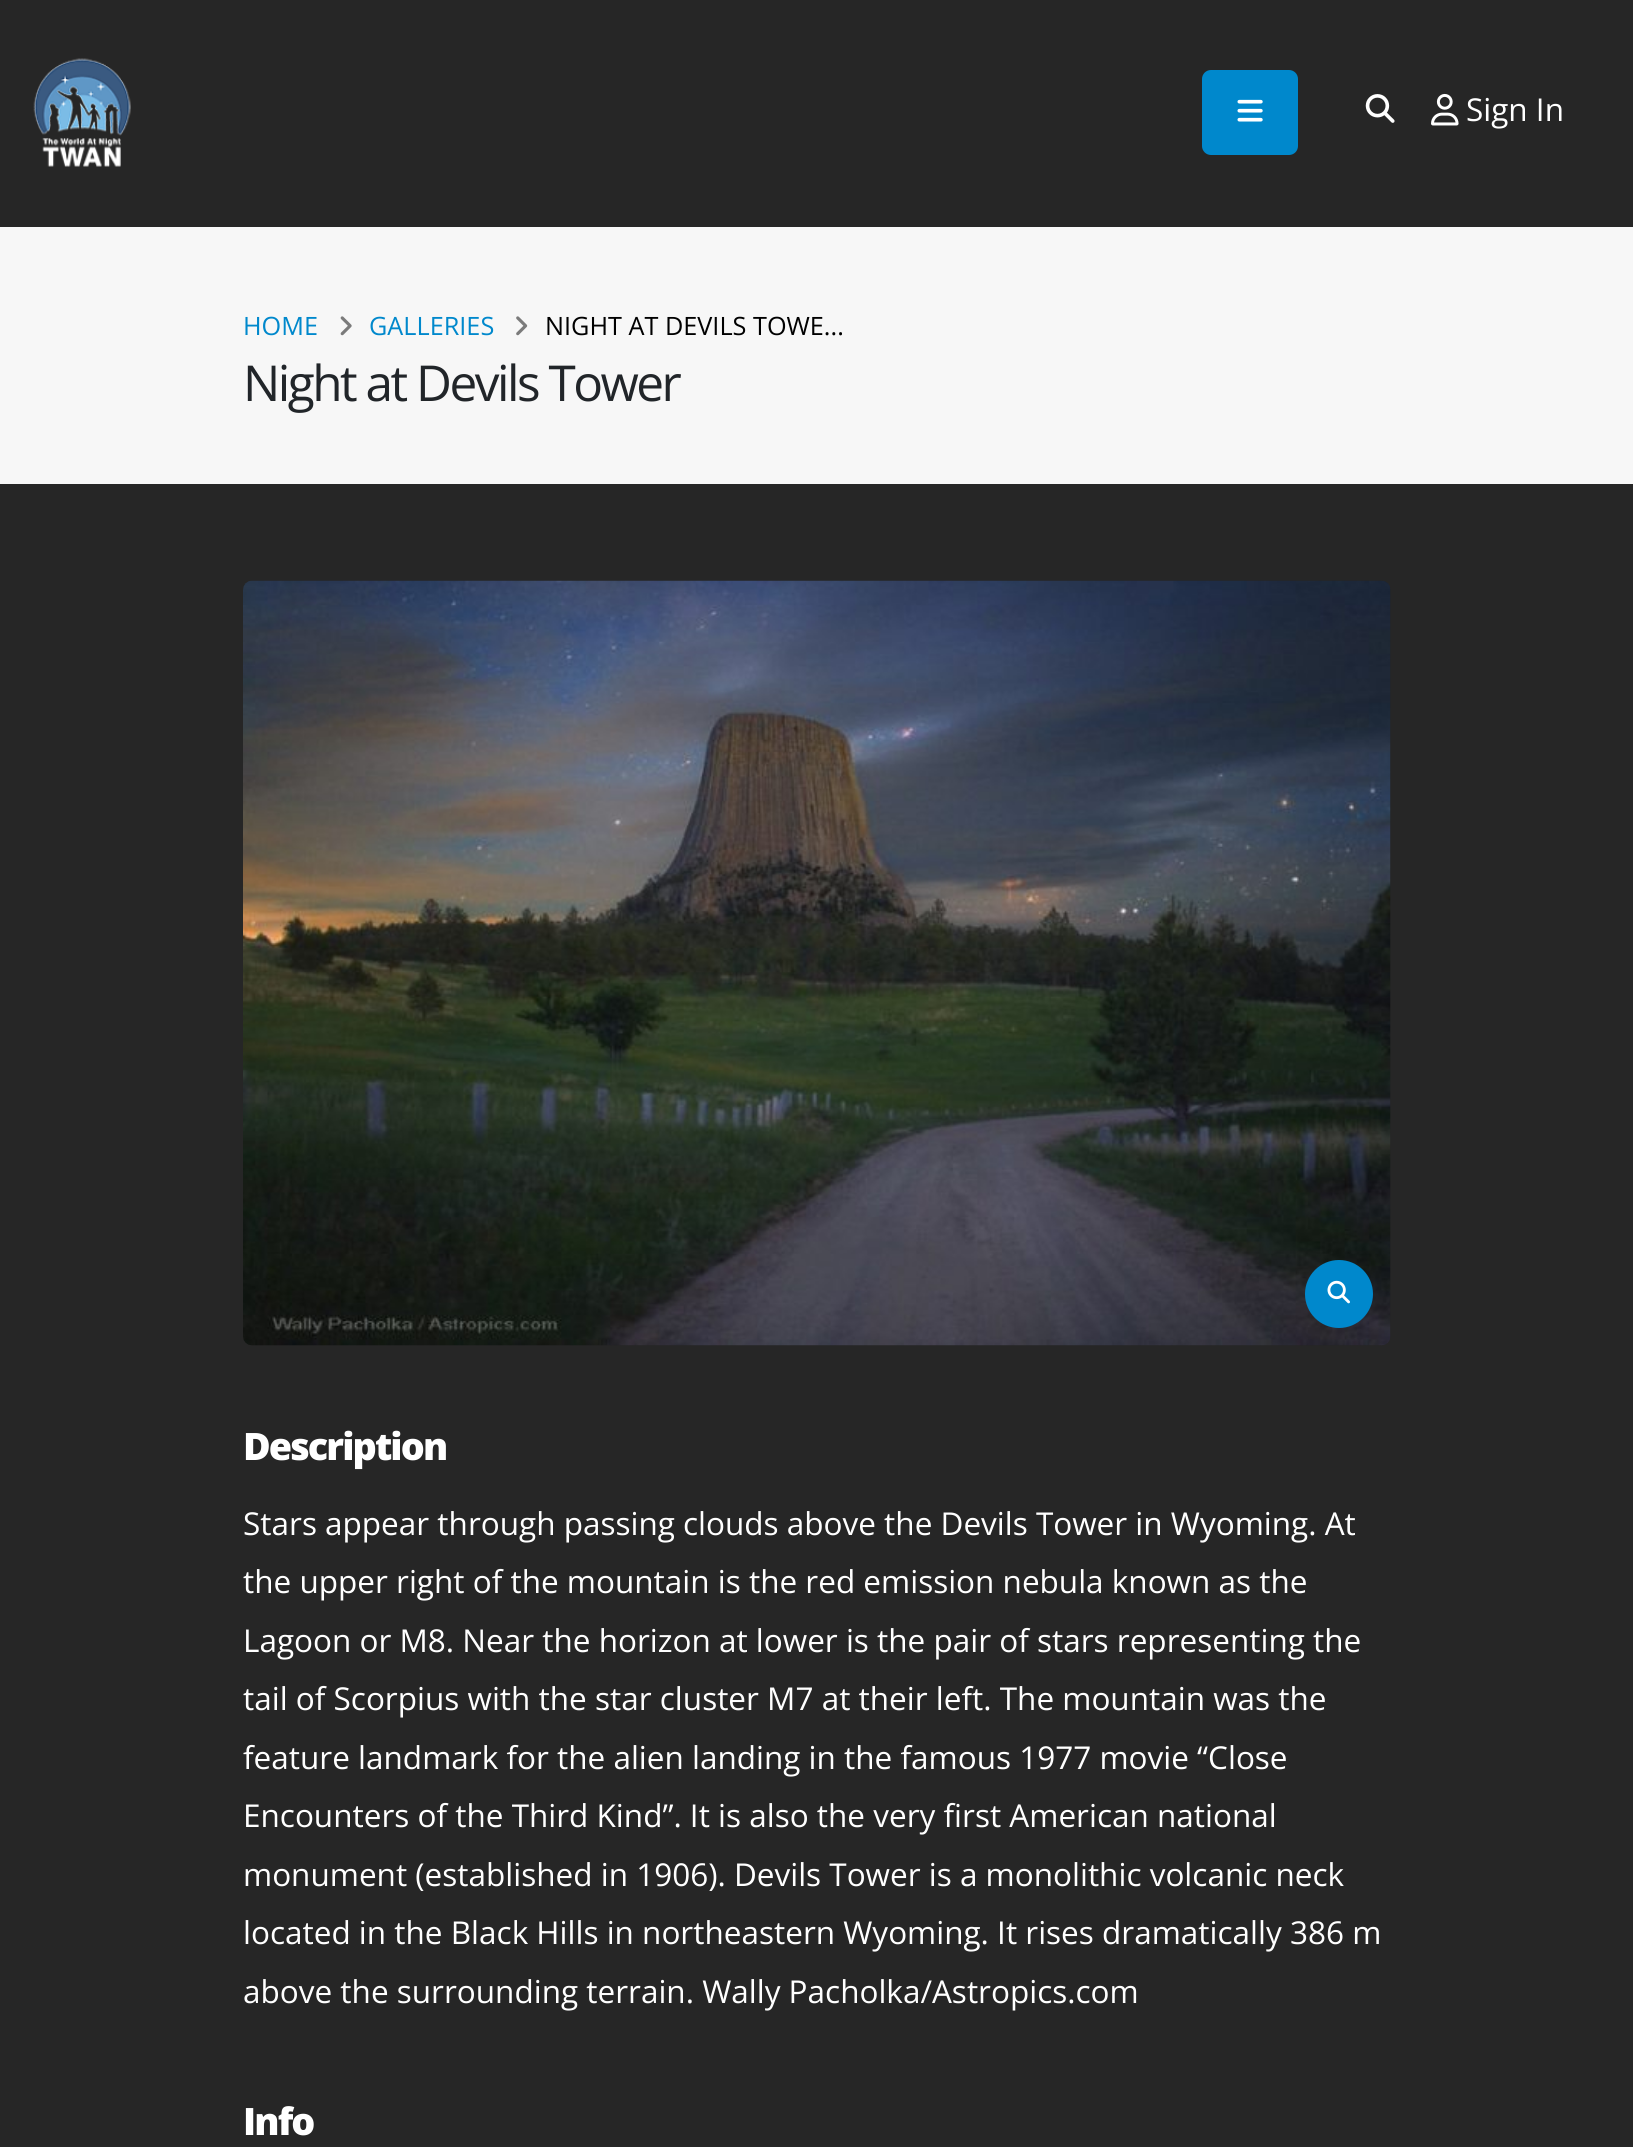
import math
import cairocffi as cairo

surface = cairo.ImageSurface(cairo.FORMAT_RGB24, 1633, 2147)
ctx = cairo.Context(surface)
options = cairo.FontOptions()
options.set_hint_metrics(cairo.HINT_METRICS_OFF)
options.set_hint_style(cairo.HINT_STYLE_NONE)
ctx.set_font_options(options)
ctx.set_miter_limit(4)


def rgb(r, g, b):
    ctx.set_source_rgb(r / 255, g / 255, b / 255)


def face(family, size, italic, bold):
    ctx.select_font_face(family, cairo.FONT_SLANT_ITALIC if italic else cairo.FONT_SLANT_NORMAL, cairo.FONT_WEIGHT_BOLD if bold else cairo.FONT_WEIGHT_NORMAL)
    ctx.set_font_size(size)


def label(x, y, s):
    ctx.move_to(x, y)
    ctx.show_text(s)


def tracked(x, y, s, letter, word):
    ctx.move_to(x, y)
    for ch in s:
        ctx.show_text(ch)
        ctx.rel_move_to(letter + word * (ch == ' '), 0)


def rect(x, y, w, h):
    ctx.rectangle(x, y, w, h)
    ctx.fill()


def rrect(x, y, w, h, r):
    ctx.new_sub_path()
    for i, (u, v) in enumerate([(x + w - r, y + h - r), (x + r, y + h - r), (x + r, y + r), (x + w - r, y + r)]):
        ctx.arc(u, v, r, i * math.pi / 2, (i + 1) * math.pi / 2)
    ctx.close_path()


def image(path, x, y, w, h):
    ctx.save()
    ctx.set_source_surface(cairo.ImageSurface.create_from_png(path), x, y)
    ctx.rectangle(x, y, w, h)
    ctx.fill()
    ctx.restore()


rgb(38, 38, 38)
ctx.paint()
image('image0.png', 33, 58, 98, 109)
rgb(0, 136, 204)
rrect(1202, 70, 96, 85, 9)
ctx.fill()
image('image1.png', 1237, 99, 26, 23)
image('image2.png', 1365, 94, 30, 29)
image('image3.png', 1431, 93, 28, 33)
face('Open Sans', 31.5, 0, 0)
rgb(255, 255, 255)
label(1466, 121, 'Sign In')
rgb(247, 247, 247)
rect(0, 227, 1633, 257)
face('Open Sans', 25.25, 0, 0)
rgb(0, 136, 204)
label(243, 335, 'HOME')
image('image4.png', 340, 316, 12, 20)
label(369, 335, 'GALLERIES')
image('image5.png', 516, 316, 12, 20)
rgb(0, 0, 0)
label(545, 335, 'NIGHT AT DEVILS TOWE...')
face('Open Sans', 49.5, 0, 0)
rgb(33, 37, 41)
tracked(243, 401, 'Night at Devils Tower', -2.5, 0)
image('image6.png', 243, 580, 1148, 766)
rgb(0, 136, 204)
ctx.arc(1339, 1294, 34, 0, 2 * math.pi)
ctx.fill()
image('image7.png', 1327, 1280, 23, 24)
face('Open Sans ExtraBold', 37.75, 0, 0)
rgb(255, 255, 255)
tracked(243, 1460, 'Description', -1.9, 0)
face('Open Sans', 31.5, 0, 0)
label(243, 1535, 'Stars appear through passing clouds above the Devils Tower in Wyoming. At')
label(243, 1593, 'the upper right of the mountain is the red emission nebula known as the')
label(243, 1652, 'Lagoon or M8. Near the horizon at lower is the pair of stars representing the')
label(243, 1710, 'tail of Scorpius with the star cluster M7 at their left. The mountain was the')
label(243, 1769, 'feature landmark for the alien landing in the famous 1977 movie “Close')
label(243, 1827, 'Encounters of the Third Kind”. It is also the very first American national')
label(243, 1886, 'monument (established in 1906). Devils Tower is a monolithic volcanic neck')
label(243, 1944, 'located in the Black Hills in northeastern Wyoming. It rises dramatically 386 m')
label(243, 2003, 'above the surrounding terrain. Wally Pacholka/Astropics.com')
face('Open Sans ExtraBold', 37.75, 0, 0)
tracked(243, 2135, 'Info', -1.9, 0)
surface.write_to_png('render.png')
